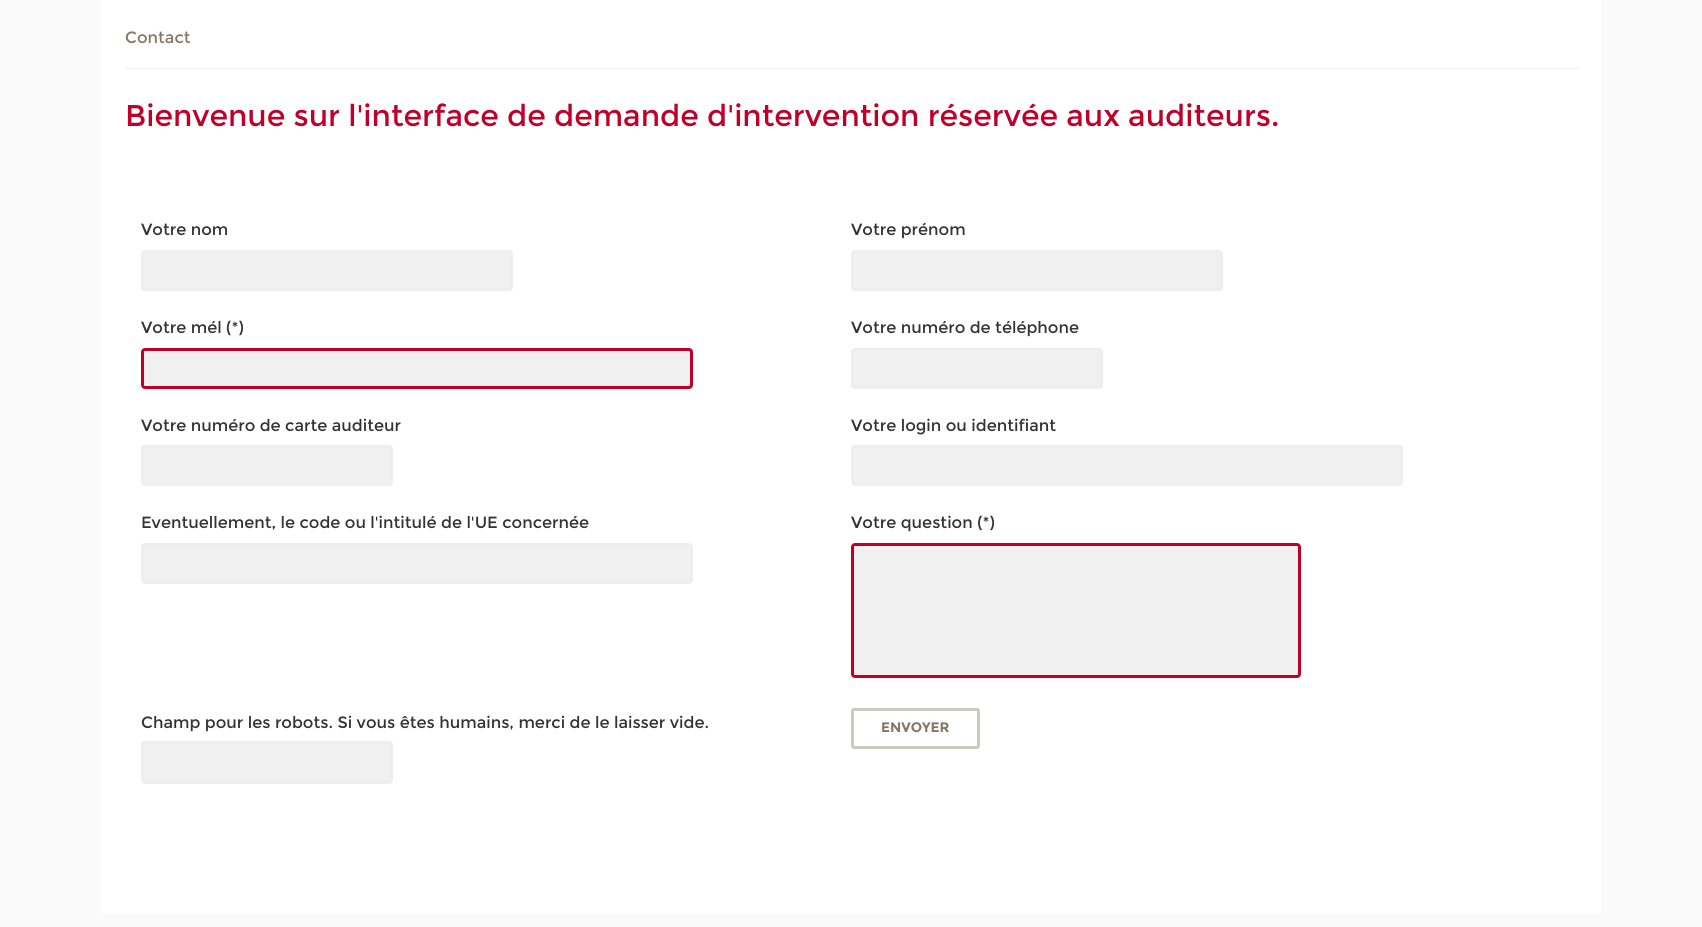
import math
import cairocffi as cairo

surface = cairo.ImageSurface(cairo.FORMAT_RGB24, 1702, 927)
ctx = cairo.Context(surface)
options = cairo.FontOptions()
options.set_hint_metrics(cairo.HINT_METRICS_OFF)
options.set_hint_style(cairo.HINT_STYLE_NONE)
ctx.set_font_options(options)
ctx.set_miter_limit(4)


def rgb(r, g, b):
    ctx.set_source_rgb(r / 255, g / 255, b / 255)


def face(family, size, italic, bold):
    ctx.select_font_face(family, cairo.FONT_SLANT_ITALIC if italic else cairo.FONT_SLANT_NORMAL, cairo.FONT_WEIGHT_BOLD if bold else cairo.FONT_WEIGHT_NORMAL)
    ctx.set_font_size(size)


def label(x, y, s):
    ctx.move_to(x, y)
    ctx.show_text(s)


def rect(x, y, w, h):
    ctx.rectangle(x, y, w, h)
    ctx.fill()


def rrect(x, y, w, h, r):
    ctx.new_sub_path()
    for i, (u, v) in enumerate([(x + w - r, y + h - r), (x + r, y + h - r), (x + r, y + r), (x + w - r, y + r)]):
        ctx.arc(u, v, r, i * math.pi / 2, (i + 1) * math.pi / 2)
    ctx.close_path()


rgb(250, 250, 250)
ctx.paint()
rgb(255, 255, 255)
rect(101, 0, 1500, 914)
rgb(238, 238, 238)
rect(125, 68, 1453, 1)
face('Montserrat', 16.25, 0, 0)
rgb(133, 119, 97)
label(125, 43, 'Contact')
face('Montserrat', 30, 0, 0)
rgb(193, 0, 42)
label(125, 126, 'Bienvenue sur l\'interface de demande d\'intervention réservée aux auditeurs.')
face('Montserrat', 16.25, 0, 0)
rgb(51, 51, 51)
label(141, 235, 'Votre nom')
rgb(240, 240, 240)
rrect(142.5, 251.5, 369, 38, 2.5)
ctx.fill_preserve()
rgb(238, 238, 238)
ctx.set_line_width(3)
ctx.stroke()
rgb(51, 51, 51)
label(851, 235, 'Votre prénom')
rgb(240, 240, 240)
rrect(852.5, 251.5, 369, 38, 2.5)
ctx.fill_preserve()
rgb(238, 238, 238)
ctx.stroke()
rgb(51, 51, 51)
label(141, 333, 'Votre mél (*)')
rgb(240, 240, 240)
rrect(142.5, 349.5, 549, 38, 2.5)
ctx.fill_preserve()
rgb(193, 0, 42)
ctx.stroke()
rgb(51, 51, 51)
label(851, 333, 'Votre numéro de téléphone')
rgb(240, 240, 240)
rrect(852.5, 349.5, 249, 38, 2.5)
ctx.fill_preserve()
rgb(238, 238, 238)
ctx.stroke()
rgb(51, 51, 51)
label(141, 431, 'Votre numéro de carte auditeur')
rgb(240, 240, 240)
rrect(142.5, 446.5, 249, 38, 2.5)
ctx.fill_preserve()
rgb(238, 238, 238)
ctx.stroke()
rgb(51, 51, 51)
label(851, 431, 'Votre login ou identifiant')
rgb(240, 240, 240)
rrect(852.5, 446.5, 549, 38, 2.5)
ctx.fill_preserve()
rgb(238, 238, 238)
ctx.stroke()
rgb(51, 51, 51)
label(141, 528, 'Eventuellement, le code ou l\'intitulé de l\'UE concernée')
rgb(240, 240, 240)
rrect(142.5, 544.5, 549, 38, 2.5)
ctx.fill_preserve()
rgb(238, 238, 238)
ctx.stroke()
rgb(51, 51, 51)
label(851, 528, 'Votre question (*)')
rgb(240, 240, 240)
rrect(852.5, 544.5, 447, 132, 2.5)
ctx.fill_preserve()
rgb(193, 0, 42)
ctx.stroke()
rgb(51, 51, 51)
label(141, 728, 'Champ pour les robots. Si vous êtes humains, merci de le laisser vide.')
rgb(240, 240, 240)
rrect(142.5, 742.5, 249, 40, 2.5)
ctx.fill_preserve()
rgb(238, 238, 238)
ctx.stroke()
rrect(852.5, 709.5, 126, 38, 1.5)
rgb(207, 200, 192)
ctx.stroke()
face('Montserrat', 13.75, 0, 1)
rgb(133, 119, 97)
label(881, 732, 'ENVOYER')
surface.write_to_png('render.png')
